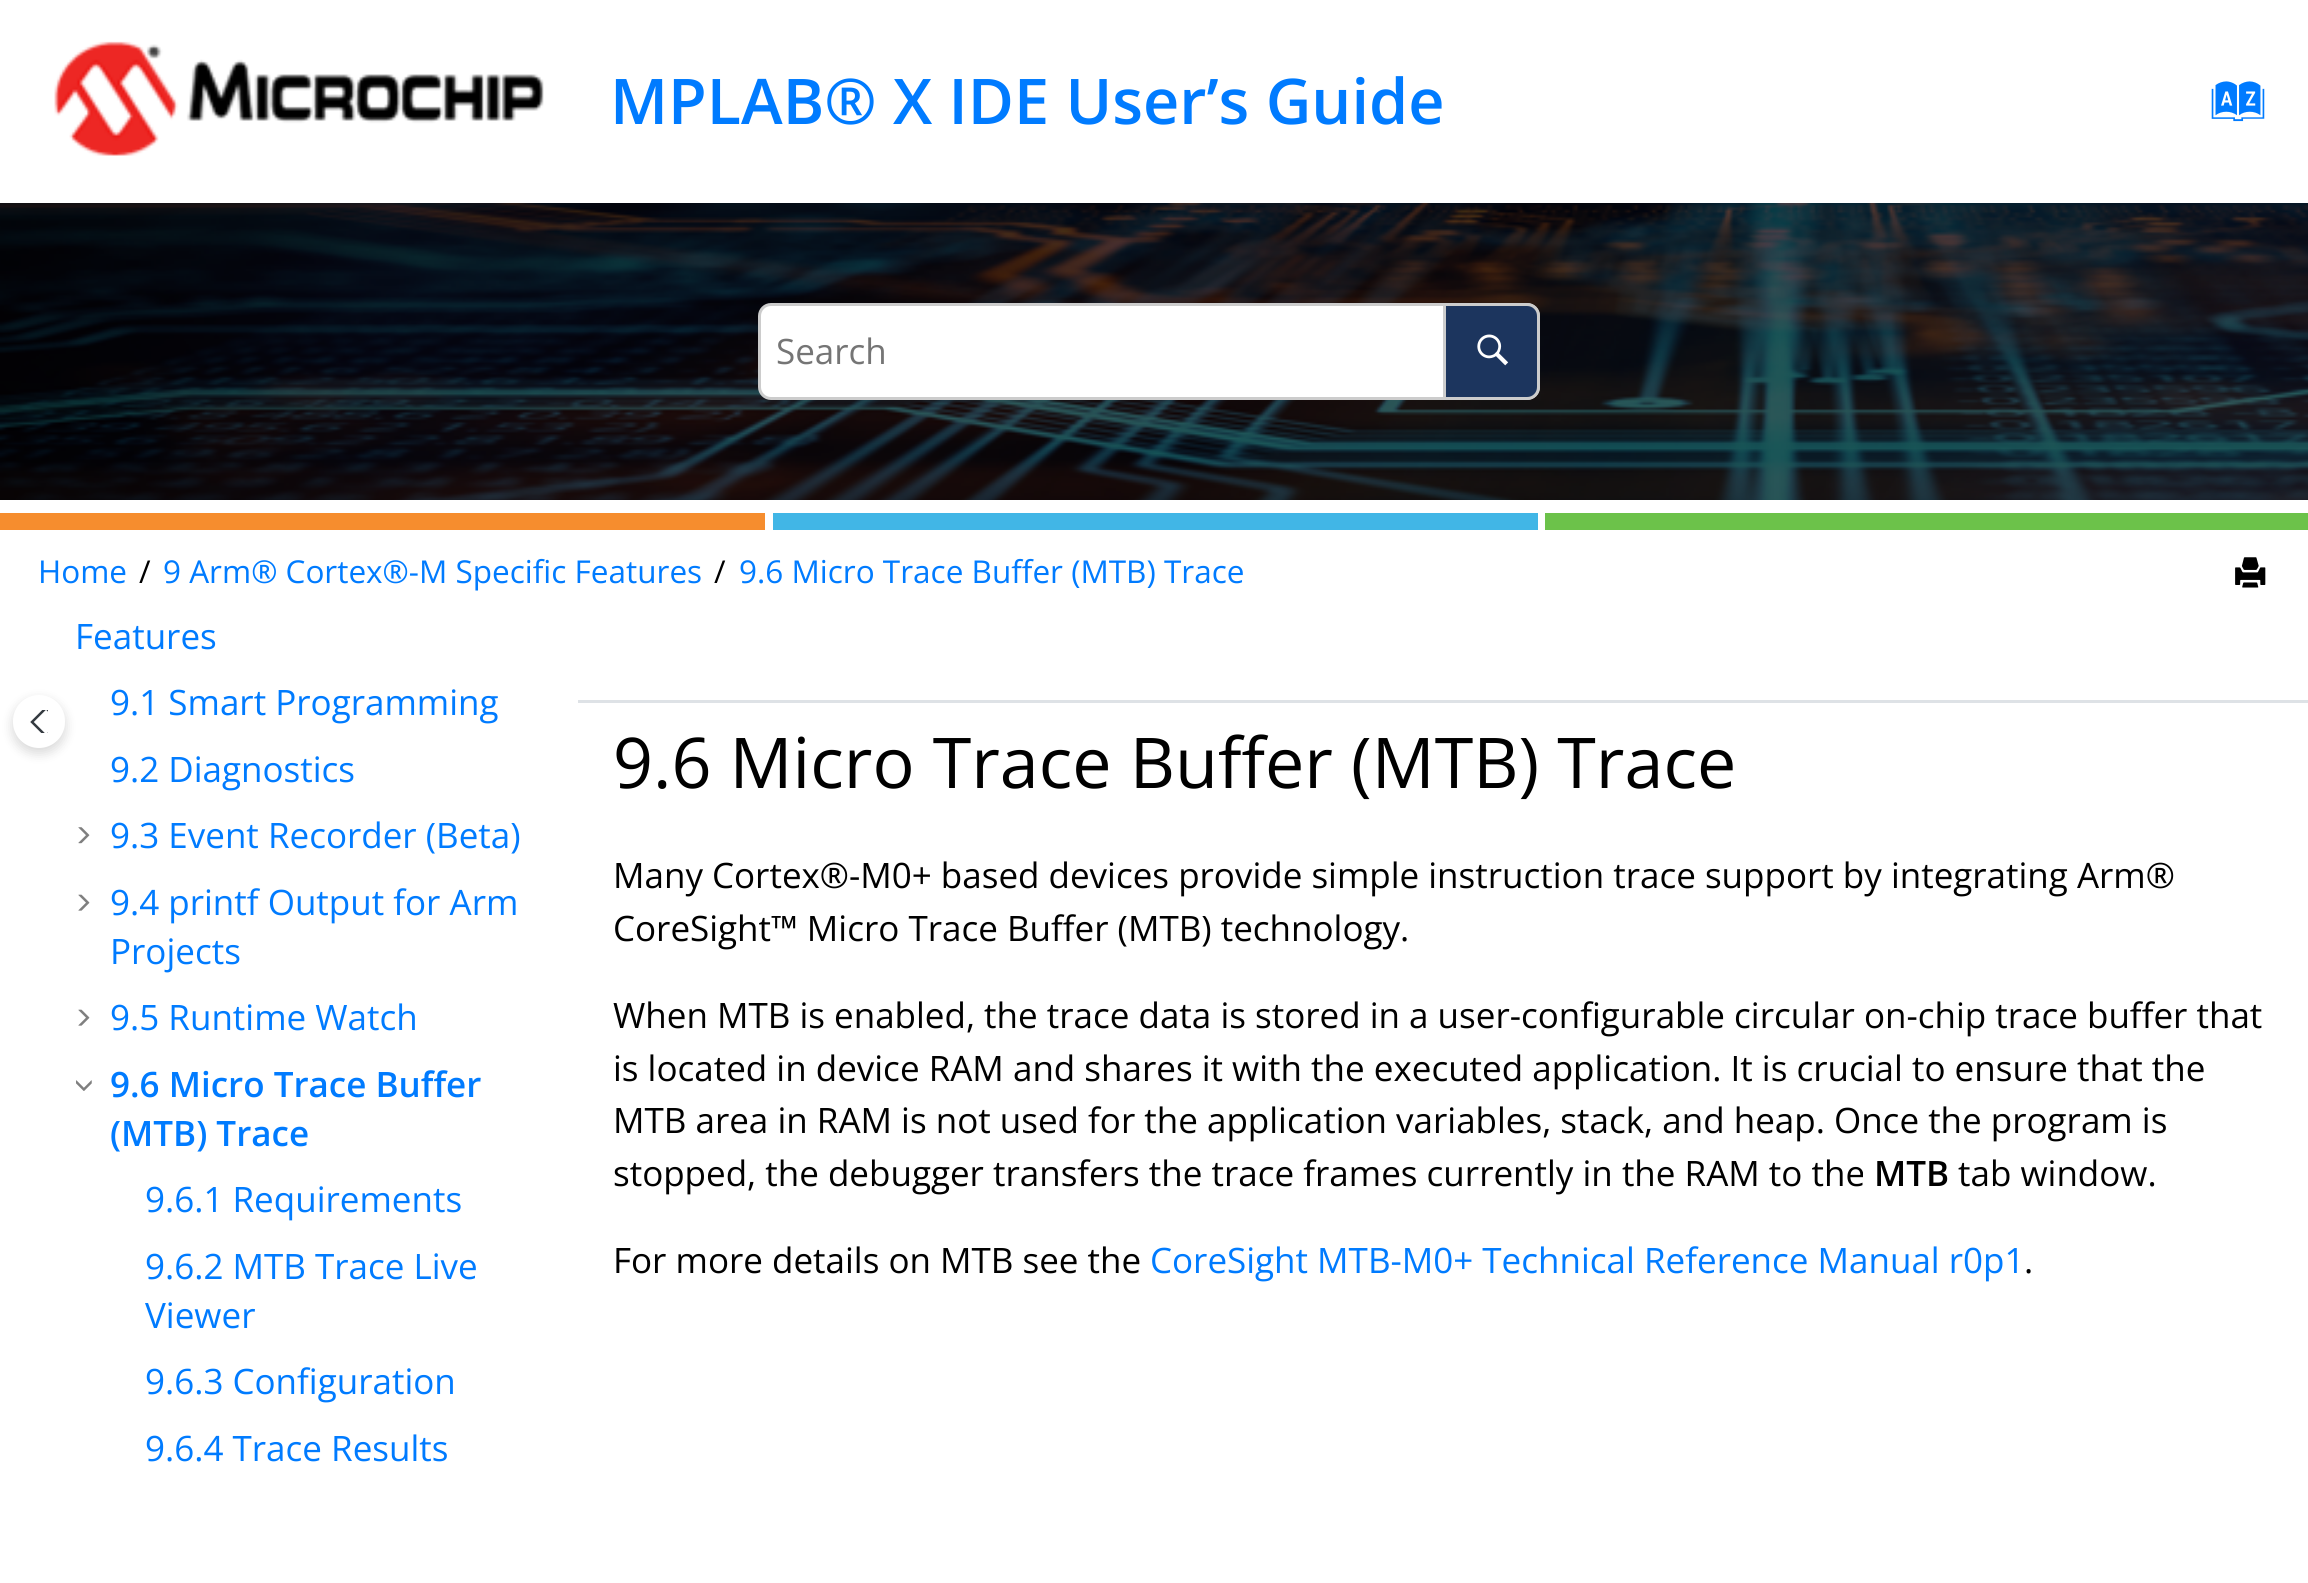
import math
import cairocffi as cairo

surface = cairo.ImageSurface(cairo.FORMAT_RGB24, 2308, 1583)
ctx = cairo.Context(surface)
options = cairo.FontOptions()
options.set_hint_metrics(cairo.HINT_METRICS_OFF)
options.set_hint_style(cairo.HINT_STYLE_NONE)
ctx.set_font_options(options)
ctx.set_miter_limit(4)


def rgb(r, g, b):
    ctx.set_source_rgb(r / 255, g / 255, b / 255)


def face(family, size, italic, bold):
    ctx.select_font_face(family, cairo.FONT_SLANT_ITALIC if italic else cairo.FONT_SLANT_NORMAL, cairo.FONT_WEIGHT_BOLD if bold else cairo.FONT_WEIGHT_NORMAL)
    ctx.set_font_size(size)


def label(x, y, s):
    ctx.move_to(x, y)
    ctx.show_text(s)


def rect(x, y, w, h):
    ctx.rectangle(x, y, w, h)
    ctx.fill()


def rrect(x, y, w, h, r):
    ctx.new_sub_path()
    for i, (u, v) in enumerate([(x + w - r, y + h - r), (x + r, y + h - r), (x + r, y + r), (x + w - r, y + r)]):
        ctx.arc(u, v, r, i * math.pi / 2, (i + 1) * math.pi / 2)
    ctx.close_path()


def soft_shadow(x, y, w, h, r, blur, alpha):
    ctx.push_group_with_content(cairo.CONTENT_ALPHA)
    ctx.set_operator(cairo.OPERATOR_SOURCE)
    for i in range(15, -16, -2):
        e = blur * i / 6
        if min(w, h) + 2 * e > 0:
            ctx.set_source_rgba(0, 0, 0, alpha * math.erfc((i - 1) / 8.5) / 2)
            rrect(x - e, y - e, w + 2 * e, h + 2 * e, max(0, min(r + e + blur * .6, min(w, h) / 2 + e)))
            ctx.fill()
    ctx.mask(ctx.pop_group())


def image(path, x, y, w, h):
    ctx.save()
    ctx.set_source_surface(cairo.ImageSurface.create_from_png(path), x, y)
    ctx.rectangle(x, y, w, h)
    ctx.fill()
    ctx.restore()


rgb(255, 255, 255)
ctx.paint()
image('image0.png', 54, 41, 490, 115)
face('Open Sans SemiBold', 63, 0, 0)
rgb(0, 123, 255)
label(610, 124, 'MPLAB® X IDE User’s Guide')
image('image1.png', 2211, 81, 54, 41)
image('image2.png', 0, 203, 2308, 297)
rgb(255, 255, 255)
rrect(759.5, 304.5, 779, 94, 11.5)
ctx.fill_preserve()
rgb(204, 204, 204)
ctx.set_line_width(3)
ctx.stroke()
face('Open Sans', 35, 0, 0)
rgb(117, 117, 117)
label(776, 364, 'Search')
rgb(28, 53, 94)
ctx.new_path()
ctx.move_to(1444.5, 304.5)
ctx.line_to(1527, 304.5)
ctx.curve_to(1533.5, 304.5, 1538.5, 309.5, 1538.5, 316)
ctx.line_to(1538.5, 387)
ctx.curve_to(1538.5, 393.5, 1533.5, 398.5, 1527, 398.5)
ctx.line_to(1444.5, 398.5)
ctx.close_path()
ctx.fill_preserve()
rgb(204, 204, 204)
ctx.stroke()
image('image3.png', 1477, 334, 32, 32)
rgb(246, 141, 46)
rect(0, 513, 765, 17)
rgb(65, 182, 230)
rect(773, 513, 765, 17)
rgb(108, 194, 74)
rect(1545, 513, 763, 17)
face('Open Sans', 31.5, 0, 0)
rgb(0, 123, 255)
label(38, 583, 'Home')
rgb(0, 0, 0)
label(139, 583, '/')
rgb(0, 123, 255)
label(163, 583, '9 Arm® Cortex®-M Specific Features')
rgb(0, 0, 0)
label(714, 583, '/')
rgb(0, 123, 255)
label(739, 583, '9.6 Micro Trace Buffer (MTB) Trace')
image('image4.png', 2235, 557, 31, 31)
face('Open Sans', 35, 0, 0)
label(75, 649, 'Features')
label(110, 715, '9.1 Smart Programming')
label(110, 782, '9.2 Diagnostics')
image('image5.png', 78, 827, 12, 17)
label(110, 848, '9.3 Event Recorder (Beta)')
image('image6.png', 78, 894, 12, 17)
label(110, 915, '9.4 printf Output for Arm')
label(110, 964, 'Projects')
image('image6.png', 78, 1009, 12, 17)
label(110, 1030, '9.5 Runtime Watch')
image('image7.png', 76, 1080, 16, 11)
face('Open Sans SemiBold', 35, 0, 0)
label(110, 1097, '9.6 Micro Trace Buffer')
label(110, 1146, '(MTB) Trace')
face('Open Sans', 35, 0, 0)
label(145, 1212, '9.6.1 Requirements')
label(145, 1279, '9.6.2 MTB Trace Live')
label(145, 1328, 'Viewer')
label(145, 1394, '9.6.3 Configuration')
label(145, 1461, '9.6.4 Trace Results')
rgb(0, 0, 0)
soft_shadow(13, 700, 52, 53, 26, 6, 0.16)
rgb(255, 255, 255)
rrect(13, 695, 52, 53, 26)
ctx.fill()
ctx.save()
ctx.rectangle(30, 710, 18, 23)
ctx.clip()
ctx.new_path()
ctx.move_to(46, 708)
ctx.line_to(60.5, 722)
ctx.line_to(46, 736)
ctx.line_to(32, 722)
ctx.close_path()
rgb(52, 58, 64)
ctx.set_line_width(2.5)
ctx.stroke()
ctx.restore()
face('Open Sans', 70, 0, 0)
rgb(0, 0, 0)
label(613, 788, '9.6 Micro Trace Buffer (MTB) Trace')
face('Open Sans', 35, 0, 0)
label(613, 888, 'Many Cortex®-M0+ based devices provide simple instruction trace support by integrating Arm®')
label(613, 941, 'CoreSight™ Micro Trace Buffer (MTB) technology.')
label(613, 1028, 'When MTB is enabled, the trace data is stored in a user-configurable circular on-chip trace buffer that')
label(613, 1081, 'is located in device RAM and shares it with the executed application. It is crucial to ensure that the')
label(613, 1133, 'MTB area in RAM is not used for the application variables, stack, and heap. Once the program is')
label(613, 1186, 'stopped, the debugger transfers the trace frames currently in the RAM to the')
face('Open Sans SemiBold', 35, 0, 0)
label(1874, 1186, 'MTB')
face('Open Sans', 35, 0, 0)
label(1958, 1186, 'tab window.')
label(613, 1273, 'For more details on MTB see the')
rgb(0, 123, 255)
label(1150, 1273, 'CoreSight MTB-M0+ Technical Reference Manual r0p1')
rgb(0, 0, 0)
label(2024, 1273, '.')
rgb(222, 226, 230)
rect(578, 700, 1730, 3)
surface.write_to_png('render.png')
